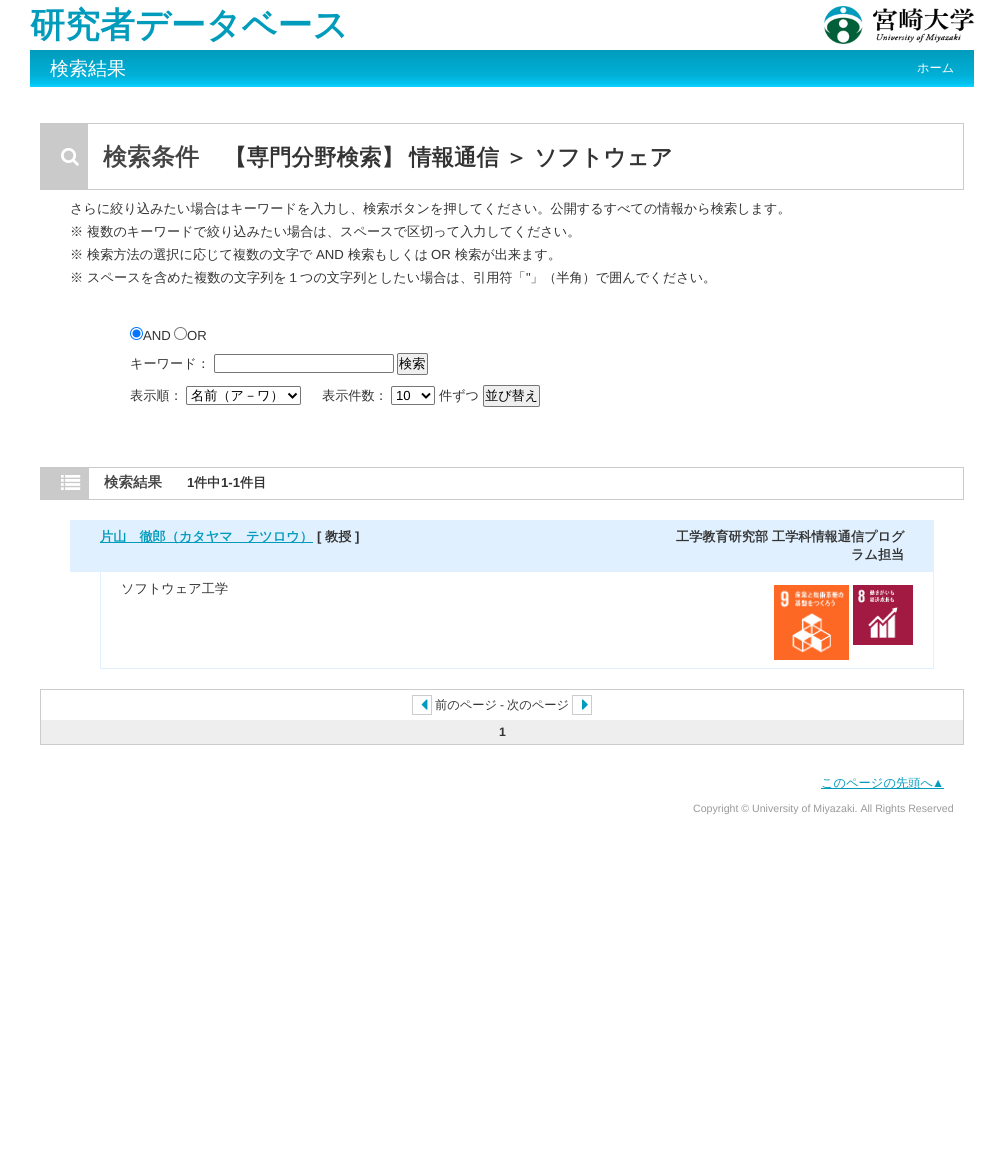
import math
import cairocffi as cairo

surface = cairo.ImageSurface(cairo.FORMAT_RGB24, 1004, 1155)
ctx = cairo.Context(surface)
options = cairo.FontOptions()
options.set_hint_metrics(cairo.HINT_METRICS_OFF)
options.set_hint_style(cairo.HINT_STYLE_NONE)
ctx.set_font_options(options)
ctx.set_miter_limit(4)


def rgb(r, g, b):
    ctx.set_source_rgb(r / 255, g / 255, b / 255)


def face(family, size, italic, bold):
    ctx.select_font_face(family, cairo.FONT_SLANT_ITALIC if italic else cairo.FONT_SLANT_NORMAL, cairo.FONT_WEIGHT_BOLD if bold else cairo.FONT_WEIGHT_NORMAL)
    ctx.set_font_size(size)


def label(x, y, s):
    ctx.move_to(x, y)
    ctx.show_text(s)


def rect(x, y, w, h):
    ctx.rectangle(x, y, w, h)
    ctx.fill()


def rrect(x, y, w, h, r):
    ctx.new_sub_path()
    for i, (u, v) in enumerate([(x + w - r, y + h - r), (x + r, y + h - r), (x + r, y + r), (x + w - r, y + r)]):
        ctx.arc(u, v, r, i * math.pi / 2, (i + 1) * math.pi / 2)
    ctx.close_path()


def image(path, x, y, w, h):
    ctx.save()
    ctx.set_source_surface(cairo.ImageSurface.create_from_png(path), x, y)
    ctx.rectangle(x, y, w, h)
    ctx.fill()
    ctx.restore()


rgb(255, 255, 255)
ctx.paint()
face('WenQuanYi Zen Hei', 35, 0, 1)
rgb(1, 155, 188)
label(30, 37, '研究者データベース')
image('image0.png', 824, 6, 150, 38)
gradient = cairo.LinearGradient(502, 50, 502, 87)
gradient.add_color_stop_rgba(0, 0.004, 0.608, 0.741, 1)
gradient.add_color_stop_rgba(0.68, 0.004, 0.686, 0.839, 1)
gradient.add_color_stop_rgba(0.91, 0.004, 0.765, 0.941, 1)
gradient.add_color_stop_rgba(0.99, 0.051, 0.82, 0.996, 1)
gradient.add_color_stop_rgba(1, 0.004, 0.608, 0.741, 1)
ctx.set_source(gradient)
rect(30, 50, 944, 37)
face('WenQuanYi Zen Hei Medium', 19, 0, 0)
rgb(255, 255, 255)
label(50, 75, '検索結果')
face('WenQuanYi Zen Hei Medium', 12.25, 0, 0)
label(917, 72, 'ホーム')
ctx.rectangle(40.5, 123.5, 923, 66)
rgb(202, 202, 202)
ctx.set_line_width(1)
ctx.stroke()
rect(41, 124, 47, 65)
image('image1.png', 61, 148, 18, 18)
face('WenQuanYi Zen Hei', 24, 0, 1)
rgb(68, 68, 68)
label(103, 165, '検索条件')
face('WenQuanYi Zen Hei', 22.5, 0, 1)
rgb(51, 51, 51)
label(224, 165, '【専門分野検索】')
label(409, 165, '情報通信')
label(505, 165, '＞ ソフトウェア')
face('WenQuanYi Zen Hei Medium', 13.15, 0, 0)
label(70, 213, 'さらに絞り込みたい場合はキーワードを入力し、検索ボタンを押してください。公開するすべての情報から検索します。')
label(70, 236, '※ 複数のキーワードで絞り込みたい場合は、スペースで区切って入力してください。')
label(70, 259, '※ 検索方法の選択に応じて複数の文字で')
face('Liberation Sans', 13.15, 0, 0)
label(316, 259, 'AND')
face('WenQuanYi Zen Hei Medium', 13.15, 0, 0)
label(348, 259, '検索もしくは')
face('Liberation Sans', 13.15, 0, 0)
label(431, 259, 'OR')
face('WenQuanYi Zen Hei Medium', 13.15, 0, 0)
label(455, 259, '検索が出来ます。')
label(70, 282, '※ スペースを含めた複数の文字列を１つの文字列としたい場合は、引用符「')
face('Liberation Sans', 13.15, 0, 0)
label(526, 282, '"')
face('WenQuanYi Zen Hei Medium', 13.15, 0, 0)
label(530, 282, '」（半角）で囲んでください。')
ctx.new_path()
ctx.arc(136.5, 333.5, 6, 0, 2 * math.pi)
rgb(0, 117, 255)
ctx.stroke()
ctx.arc(136.5, 333.5, 4, 0, 2 * math.pi)
ctx.fill()
face('Liberation Sans', 13.15, 0, 0)
rgb(51, 51, 51)
label(143, 340, 'AND')
ctx.new_path()
ctx.arc(180.5, 333.5, 6, 0, 2 * math.pi)
rgb(118, 118, 118)
ctx.stroke()
rgb(51, 51, 51)
label(187, 340, 'OR')
face('WenQuanYi Zen Hei Medium', 13.15, 0, 0)
label(130, 368, 'キーワード：')
rrect(214.5, 354.5, 179, 18, 1.5)
rgb(118, 118, 118)
ctx.stroke()
rgb(239, 239, 239)
rrect(397.5, 353.5, 30, 21, 1.5)
ctx.fill_preserve()
rgb(118, 118, 118)
ctx.stroke()
rgb(0, 0, 0)
label(399, 368, '検索')
rgb(51, 51, 51)
label(130, 400, '表示順：')
rrect(186.5, 386.5, 114, 18, 1.5)
rgb(118, 118, 118)
ctx.stroke()
ctx.new_path()
ctx.move_to(288.5, 393.5)
ctx.line_to(292.5, 397.5)
ctx.line_to(296.5, 393.5)
rgb(0, 0, 0)
ctx.set_line_width(2)
ctx.stroke()
label(191, 400, '名前（ア－ワ）')
rgb(51, 51, 51)
label(322, 400, '表示件数：')
rrect(391.5, 386.5, 43, 18, 1.5)
rgb(118, 118, 118)
ctx.set_line_width(1)
ctx.stroke()
ctx.new_path()
ctx.move_to(422, 393.5)
ctx.line_to(426, 397.5)
ctx.line_to(430, 393.5)
rgb(0, 0, 0)
ctx.set_line_width(2)
ctx.stroke()
face('Liberation Sans', 13.15, 0, 0)
label(396, 400, '10')
face('WenQuanYi Zen Hei Medium', 13.15, 0, 0)
rgb(51, 51, 51)
label(439, 400, '件ずつ')
rgb(239, 239, 239)
rrect(483.5, 385.5, 56, 21, 1.5)
ctx.fill_preserve()
rgb(118, 118, 118)
ctx.set_line_width(1)
ctx.stroke()
rgb(0, 0, 0)
label(485, 400, '並び替え')
ctx.rectangle(40.5, 467.5, 923, 32)
rgb(202, 202, 202)
ctx.stroke()
rect(41, 468, 48, 31)
image('image2.png', 61, 475, 20, 15)
face('WenQuanYi Zen Hei', 14.5, 0, 1)
rgb(68, 68, 68)
label(104, 487, '検索結果')
face('Liberation Sans', 13.15, 0, 1)
rgb(51, 51, 51)
label(187, 487, '1')
face('WenQuanYi Zen Hei', 13.15, 0, 1)
label(194, 487, '件中')
face('Liberation Sans', 13.15, 0, 1)
label(221, 487, '1-1')
face('WenQuanYi Zen Hei', 13.15, 0, 1)
label(240, 487, '件目')
rgb(224, 240, 255)
rect(70, 520, 864, 52)
rgb(1, 155, 188)
rect(100, 542, 213, 1)
label(100, 541, '片山　徹郎（カタヤマ　テツロウ）')
face('Liberation Sans', 13.15, 0, 1)
rgb(51, 51, 51)
label(317, 541, '[')
face('WenQuanYi Zen Hei', 13.15, 0, 1)
label(325, 541, '教授')
face('Liberation Sans', 13.15, 0, 1)
label(355, 541, ']')
face('WenQuanYi Zen Hei', 13.15, 0, 1)
label(676, 541, '工学教育研究部 工学科情報通信プログ')
label(851, 559, 'ラム担当')
rgb(224, 240, 255)
rect(933, 572, 1, 97)
rect(100, 668, 834, 1)
rect(100, 572, 1, 97)
face('WenQuanYi Zen Hei Medium', 13.15, 0, 0)
rgb(51, 51, 51)
label(121, 593, 'ソフトウェア工学')
image('image3.png', 774, 585, 75, 75)
image('image4.png', 853, 585, 60, 60)
rgb(238, 238, 238)
rect(41, 720, 922, 24)
ctx.rectangle(40.5, 689.5, 923, 55)
rgb(204, 204, 204)
ctx.stroke()
ctx.rectangle(412.5, 695.5, 19, 19)
ctx.stroke()
image('image5.png', 421, 699, 7, 11)
face('WenQuanYi Zen Hei Medium', 12.25, 0, 0)
rgb(51, 51, 51)
label(435, 709, '前のページ')
face('Liberation Sans', 12.25, 0, 0)
label(500, 709, '-')
face('WenQuanYi Zen Hei Medium', 12.25, 0, 0)
label(507, 709, '次のページ')
ctx.rectangle(572.5, 695.5, 19, 19)
rgb(204, 204, 204)
ctx.stroke()
image('image6.png', 582, 699, 6, 11)
face('Liberation Sans', 12.25, 0, 1)
rgb(51, 51, 51)
label(499, 736, '1')
rgb(1, 155, 188)
rect(821, 788, 123, 1)
face('WenQuanYi Zen Hei Medium', 12.25, 0, 0)
label(821, 787, 'このページの先頭へ')
face('Liberation Sans', 12.25, 0, 0)
label(932, 787, '▲')
face('Liberation Sans', 10.6, 0, 0)
rgb(153, 153, 153)
label(693, 812, 'Copyright © University of Miyazaki. All Rights Reserved')
surface.write_to_png('render.png')
